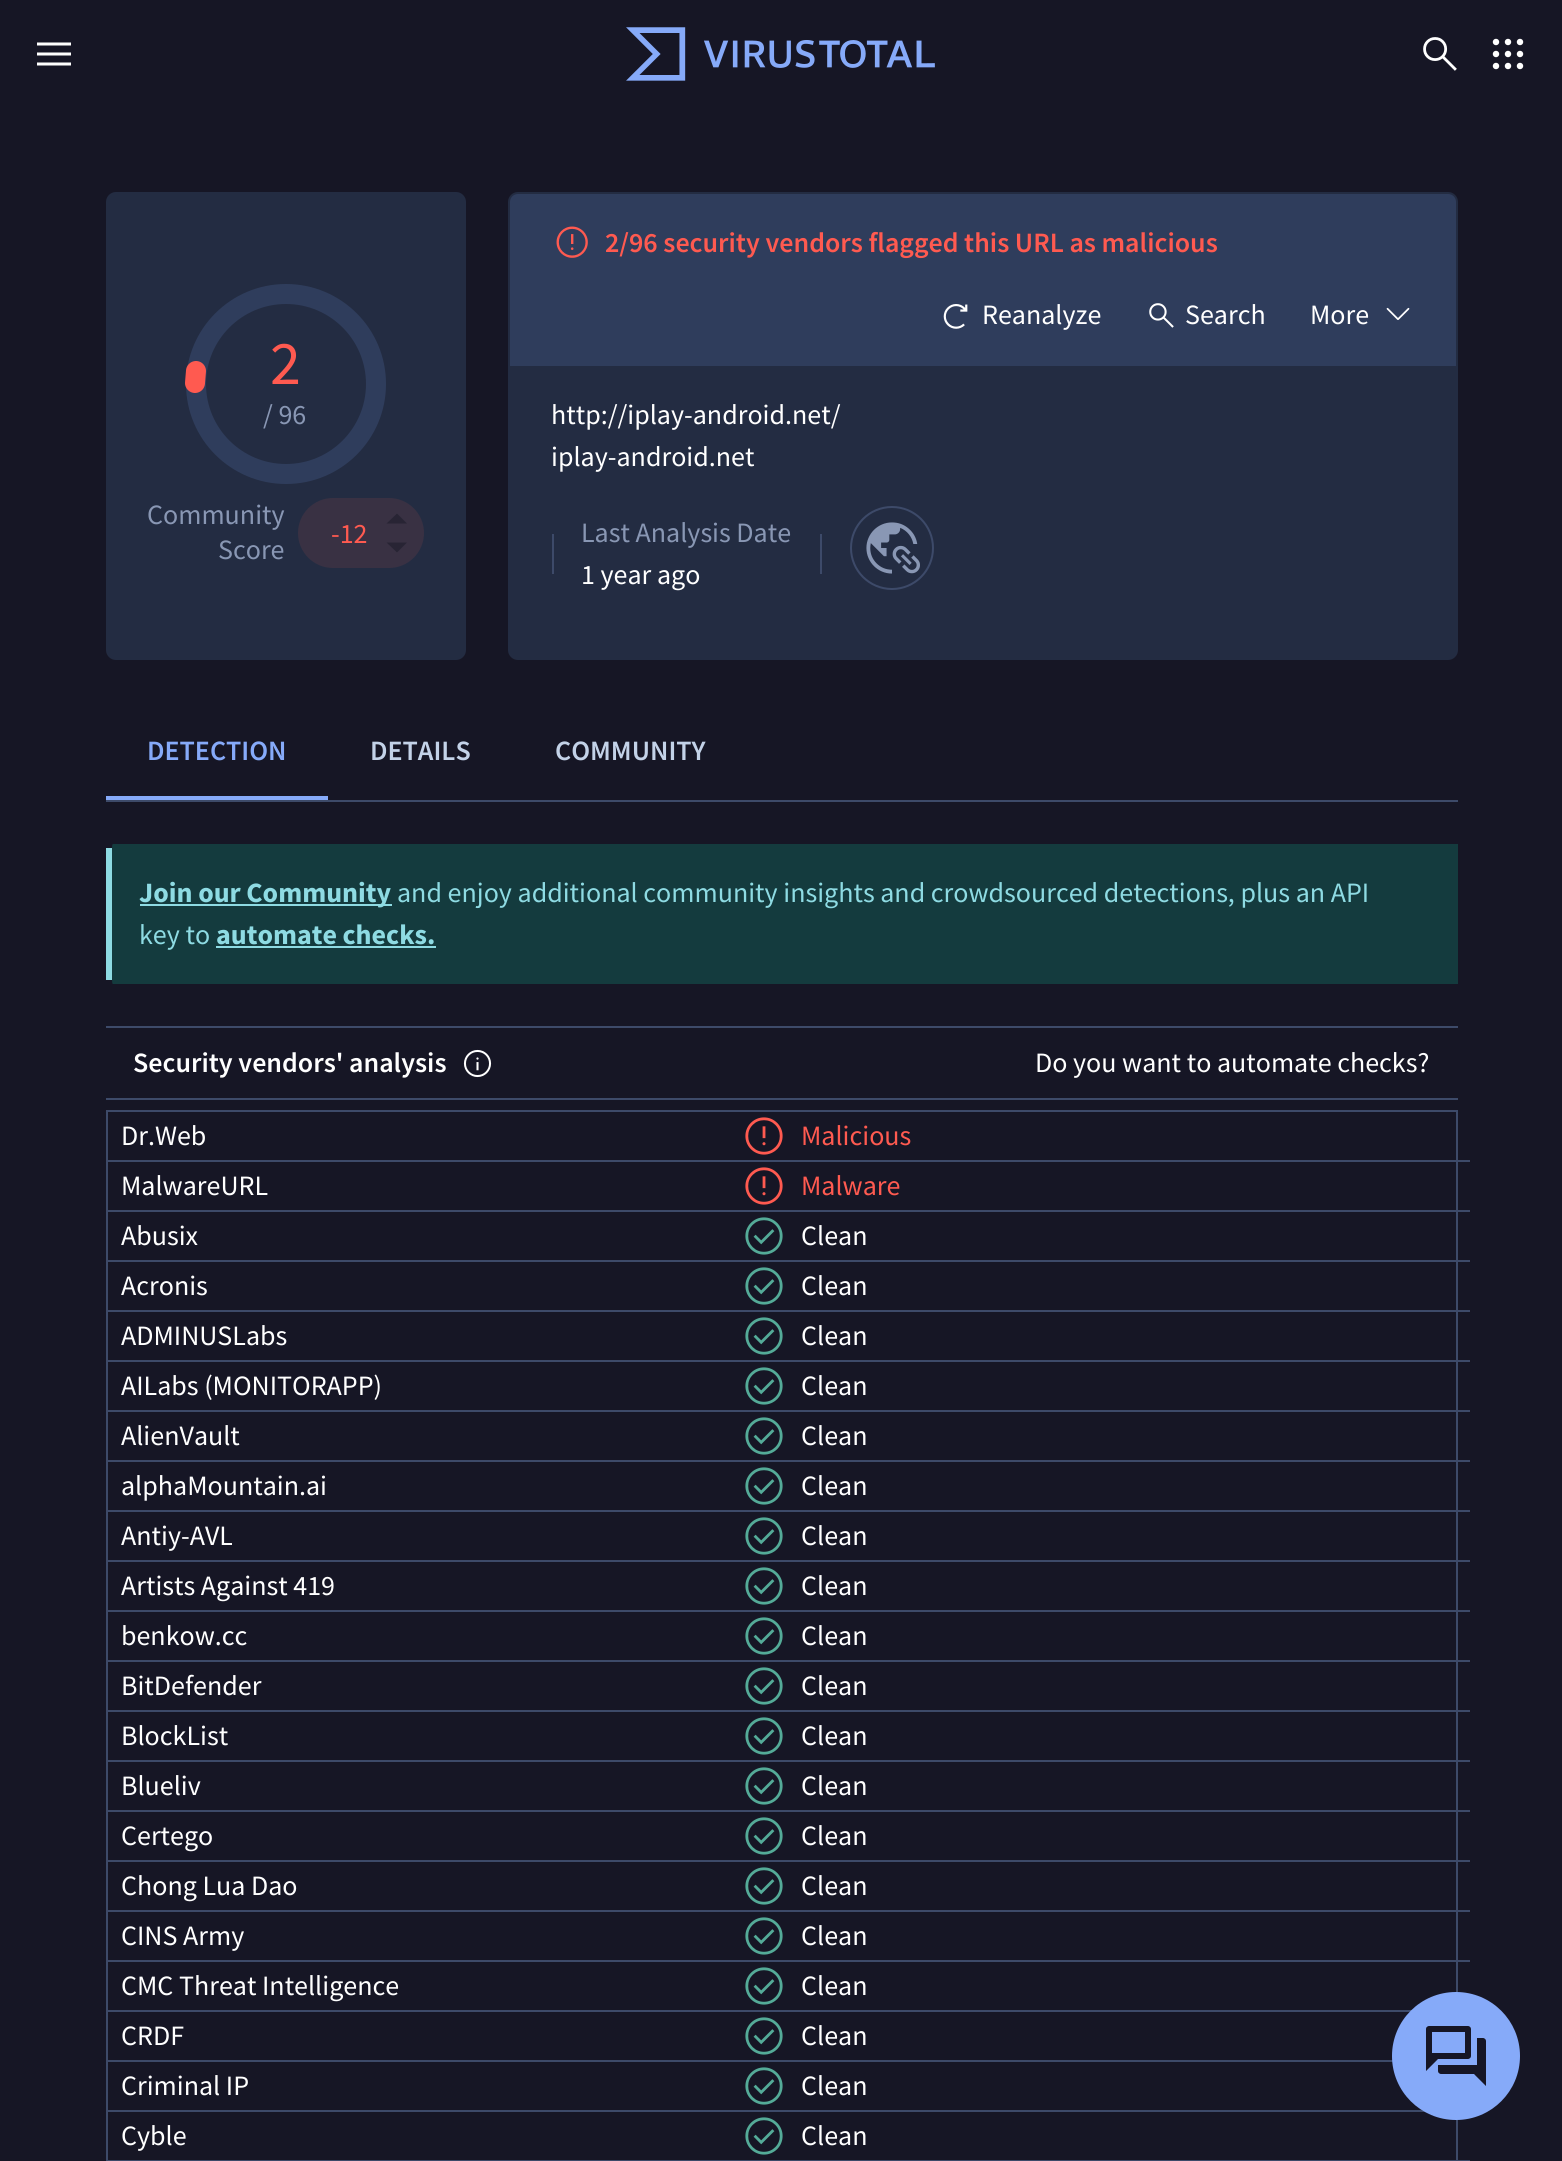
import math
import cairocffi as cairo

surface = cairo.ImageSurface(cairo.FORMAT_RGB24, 1562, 2161)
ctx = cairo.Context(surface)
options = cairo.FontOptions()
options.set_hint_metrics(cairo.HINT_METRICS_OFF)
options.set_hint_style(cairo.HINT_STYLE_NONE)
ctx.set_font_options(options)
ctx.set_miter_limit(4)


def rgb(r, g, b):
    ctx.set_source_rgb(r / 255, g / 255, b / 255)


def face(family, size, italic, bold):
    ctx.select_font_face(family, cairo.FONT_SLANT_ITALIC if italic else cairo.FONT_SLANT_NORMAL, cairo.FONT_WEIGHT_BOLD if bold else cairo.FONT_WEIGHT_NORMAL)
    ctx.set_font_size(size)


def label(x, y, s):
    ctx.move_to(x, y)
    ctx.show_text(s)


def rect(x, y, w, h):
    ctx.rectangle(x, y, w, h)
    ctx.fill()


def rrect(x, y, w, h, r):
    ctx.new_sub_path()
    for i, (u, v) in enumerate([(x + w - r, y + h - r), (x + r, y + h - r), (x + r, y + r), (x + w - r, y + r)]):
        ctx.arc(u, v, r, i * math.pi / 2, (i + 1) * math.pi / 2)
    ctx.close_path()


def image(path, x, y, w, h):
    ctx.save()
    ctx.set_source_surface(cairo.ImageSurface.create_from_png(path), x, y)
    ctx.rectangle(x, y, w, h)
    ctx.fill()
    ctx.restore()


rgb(22, 22, 37)
ctx.paint()
rgb(255, 255, 255)
ctx.new_path()
ctx.move_to(37, 65.5)
ctx.line_to(37, 62.5)
ctx.line_to(71, 62.5)
ctx.line_to(71, 65.5)
ctx.close_path()
ctx.move_to(37, 55.5)
ctx.line_to(37, 52.5)
ctx.line_to(71, 52.5)
ctx.line_to(71, 55.5)
ctx.close_path()
ctx.move_to(37, 45.5)
ctx.line_to(37, 42.5)
ctx.line_to(71, 42.5)
ctx.line_to(71, 45.5)
ctx.close_path()
ctx.fill()
image('image0.png', 626, 27, 309, 54)
image('image1.png', 1423, 37, 34, 34)
image('image2.png', 1492, 38, 32, 32)
rgb(35, 44, 66)
rrect(106, 192, 360, 468, 10)
ctx.fill()
rgb(47, 61, 92)
ctx.arc(286, 384, 100, 0, 2 * math.pi)
ctx.fill()
ctx.new_path()
ctx.move_to(195, 383)
ctx.line_to(196, 371)
rgb(255, 90, 80)
ctx.set_line_width(20)
ctx.set_line_cap(cairo.LINE_CAP_ROUND)
ctx.stroke()
rgb(35, 44, 66)
ctx.arc(286, 384, 80, 0, 2 * math.pi)
ctx.fill()
face('Source Sans Pro', 62, 0, 0)
rgb(255, 90, 80)
label(270, 384, '2')
face('Source Sans Pro', 28, 0, 0)
rgb(137, 151, 180)
label(263, 424, '/ 96')
label(147, 524, 'Community')
label(218, 559, 'Score')
rgb(57, 49, 67)
rrect(298, 498, 126, 70, 35)
ctx.fill()
rgb(255, 90, 80)
label(331, 543, '-12')
rgb(40, 36, 52)
ctx.new_path()
ctx.move_to(386.5, 523.5)
ctx.line_to(397, 513.5)
ctx.line_to(407, 523.5)
ctx.close_path()
ctx.move_to(397, 552.5)
ctx.line_to(386.5, 542.5)
ctx.line_to(407, 542.5)
ctx.close_path()
ctx.fill()
rgb(35, 44, 66)
rrect(508, 192, 950, 468, 10)
ctx.fill()
rgb(47, 61, 92)
ctx.new_path()
ctx.move_to(518, 194)
ctx.line_to(1448, 194)
ctx.curve_to(1452.5, 194, 1456, 197.5, 1456, 202)
ctx.line_to(1456, 366)
ctx.line_to(510, 366)
ctx.line_to(510, 202)
ctx.curve_to(510, 197.5, 513.5, 194, 518, 194)
ctx.close_path()
ctx.fill()
image('image3.png', 556, 226, 32, 32)
face('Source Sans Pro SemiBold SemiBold', 28, 0, 0)
rgb(255, 90, 80)
label(605, 252, '2/96 security vendors flagged this URL as malicious')
image('image4.png', 943, 304, 25, 25)
face('Source Sans Pro', 28, 0, 0)
rgb(255, 255, 255)
label(982, 324, 'Reanalyze')
image('image5.png', 1149, 303, 25, 25)
label(1185, 324, 'Search')
label(1310, 324, 'More')
image('image6.png', 1386, 307, 24, 13)
label(551, 424, 'http://iplay-android.net/')
label(551, 466, 'iplay-android.net')
rgb(61, 74, 105)
rect(552, 534, 2, 40)
rgb(137, 151, 180)
label(581, 542, 'Last Analysis Date')
rgb(255, 255, 255)
label(581, 584, '1 year ago')
rgb(61, 74, 105)
rect(820, 534, 2, 40)
ctx.new_path()
ctx.arc(892, 548, 41, 0, 2 * math.pi)
ctx.set_line_width(2)
ctx.set_line_cap(cairo.LINE_CAP_BUTT)
ctx.stroke()
image('image7.png', 866, 522, 54, 52)
rect(106, 800, 1352, 2)
rgb(134, 170, 249)
rect(106, 796, 222, 4)
face('Source Sans Pro SemiBold SemiBold', 28, 0, 0)
label(147, 760, 'DETECTION')
rgb(195, 210, 232)
label(370, 760, 'DETAILS')
label(555, 760, 'COMMUNITY')
rgb(20, 59, 62)
ctx.new_path()
ctx.move_to(113, 844)
ctx.line_to(1458, 844)
ctx.line_to(1458, 984)
ctx.line_to(113, 984)
ctx.curve_to(112, 984, 112, 981, 112, 977)
ctx.line_to(112, 851)
ctx.curve_to(112, 847, 112, 844, 113, 844)
ctx.close_path()
ctx.fill()
rgb(142, 219, 227)
rect(106, 848, 6, 132)
rect(140, 904, 252, 2)
face('Source Sans Pro', 28, 0, 1)
label(139, 902, 'Join our Community')
face('Source Sans Pro', 28, 0, 0)
label(397, 902, 'and enjoy additional community insights and crowdsourced detections, plus an API')
label(139, 944, 'key to')
face('Source Sans Pro', 28, 0, 1)
label(216, 944, 'automate checks.')
rect(216, 946, 220, 2)
rgb(61, 74, 105)
rect(106, 1026, 1352, 2)
rect(106, 1098, 1352, 2)
face('Source Sans Pro SemiBold SemiBold', 28, 0, 0)
rgb(255, 255, 255)
label(133, 1072, 'Security vendors\' analysis')
image('image8.png', 463, 1049, 29, 29)
face('Source Sans Pro', 28, 0, 0)
label(1035, 1072, 'Do you want to automate checks?')
ctx.rectangle(107, 1111, 1350, 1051)
rgb(61, 74, 105)
ctx.stroke()
rect(108, 1160, 1362, 2)
rgb(255, 255, 255)
label(121, 1145, 'Dr.Web')
image('image9.png', 745, 1117, 38, 38)
rgb(255, 90, 80)
label(801, 1145, 'Malicious')
rgb(61, 74, 105)
rect(108, 1210, 1362, 2)
rgb(255, 255, 255)
label(121, 1195, 'MalwareURL')
image('image9.png', 745, 1167, 38, 38)
rgb(255, 90, 80)
label(801, 1195, 'Malware')
rgb(61, 74, 105)
rect(108, 1260, 1362, 2)
rgb(255, 255, 255)
label(121, 1245, 'Abusix')
image('image10.png', 745, 1217, 38, 38)
label(801, 1245, 'Clean')
rgb(61, 74, 105)
rect(108, 1310, 1362, 2)
rgb(255, 255, 255)
label(121, 1295, 'Acronis')
image('image10.png', 745, 1267, 38, 38)
label(801, 1295, 'Clean')
rgb(61, 74, 105)
rect(108, 1360, 1362, 2)
rgb(255, 255, 255)
label(121, 1345, 'ADMINUSLabs')
image('image10.png', 745, 1317, 38, 38)
label(801, 1345, 'Clean')
rgb(61, 74, 105)
rect(108, 1410, 1362, 2)
rgb(255, 255, 255)
label(121, 1395, 'AILabs (MONITORAPP)')
image('image10.png', 745, 1367, 38, 38)
label(801, 1395, 'Clean')
rgb(61, 74, 105)
rect(108, 1460, 1362, 2)
rgb(255, 255, 255)
label(121, 1445, 'AlienVault')
image('image10.png', 745, 1417, 38, 38)
label(801, 1445, 'Clean')
rgb(61, 74, 105)
rect(108, 1510, 1362, 2)
rgb(255, 255, 255)
label(121, 1495, 'alphaMountain.ai')
image('image10.png', 745, 1467, 38, 38)
label(801, 1495, 'Clean')
rgb(61, 74, 105)
rect(108, 1560, 1362, 2)
rgb(255, 255, 255)
label(121, 1545, 'Antiy-AVL')
image('image10.png', 745, 1517, 38, 38)
label(801, 1545, 'Clean')
rgb(61, 74, 105)
rect(108, 1610, 1362, 2)
rgb(255, 255, 255)
label(121, 1595, 'Artists Against 419')
image('image10.png', 745, 1567, 38, 38)
label(801, 1595, 'Clean')
rgb(61, 74, 105)
rect(108, 1660, 1362, 2)
rgb(255, 255, 255)
label(121, 1645, 'benkow.cc')
image('image10.png', 745, 1617, 38, 38)
label(801, 1645, 'Clean')
rgb(61, 74, 105)
rect(108, 1710, 1362, 2)
rgb(255, 255, 255)
label(121, 1695, 'BitDefender')
image('image10.png', 745, 1667, 38, 38)
label(801, 1695, 'Clean')
rgb(61, 74, 105)
rect(108, 1760, 1362, 2)
rgb(255, 255, 255)
label(121, 1745, 'BlockList')
image('image10.png', 745, 1717, 38, 38)
label(801, 1745, 'Clean')
rgb(61, 74, 105)
rect(108, 1810, 1362, 2)
rgb(255, 255, 255)
label(121, 1795, 'Blueliv')
image('image10.png', 745, 1767, 38, 38)
label(801, 1795, 'Clean')
rgb(61, 74, 105)
rect(108, 1860, 1362, 2)
rgb(255, 255, 255)
label(121, 1845, 'Certego')
image('image10.png', 745, 1817, 38, 38)
label(801, 1845, 'Clean')
rgb(61, 74, 105)
rect(108, 1910, 1362, 2)
rgb(255, 255, 255)
label(121, 1895, 'Chong Lua Dao')
image('image10.png', 745, 1867, 38, 38)
label(801, 1895, 'Clean')
rgb(61, 74, 105)
rect(108, 1960, 1362, 2)
rgb(255, 255, 255)
label(121, 1945, 'CINS Army')
image('image10.png', 745, 1917, 38, 38)
label(801, 1945, 'Clean')
rgb(61, 74, 105)
rect(108, 2010, 1304, 2)
rgb(255, 255, 255)
label(121, 1995, 'CMC Threat Intelligence')
image('image10.png', 745, 1967, 38, 38)
label(801, 1995, 'Clean')
rgb(61, 74, 105)
rect(108, 2060, 1285, 2)
rgb(255, 255, 255)
label(121, 2045, 'CRDF')
image('image10.png', 745, 2017, 38, 38)
label(801, 2045, 'Clean')
rgb(61, 74, 105)
rect(108, 2110, 1317, 2)
rgb(255, 255, 255)
label(121, 2095, 'Criminal IP')
image('image10.png', 745, 2067, 38, 38)
label(801, 2095, 'Clean')
rgb(61, 74, 105)
rect(108, 2160, 1362, 1)
rgb(255, 255, 255)
label(121, 2145, 'Cyble')
image('image10.png', 745, 2117, 38, 38)
label(801, 2145, 'Clean')
rgb(134, 170, 249)
ctx.new_path()
ctx.arc(1456, 2056, 64, 0, 2 * math.pi)
ctx.fill()
image('image11.png', 1426, 2026, 60, 60)
surface.write_to_png('render.png')
